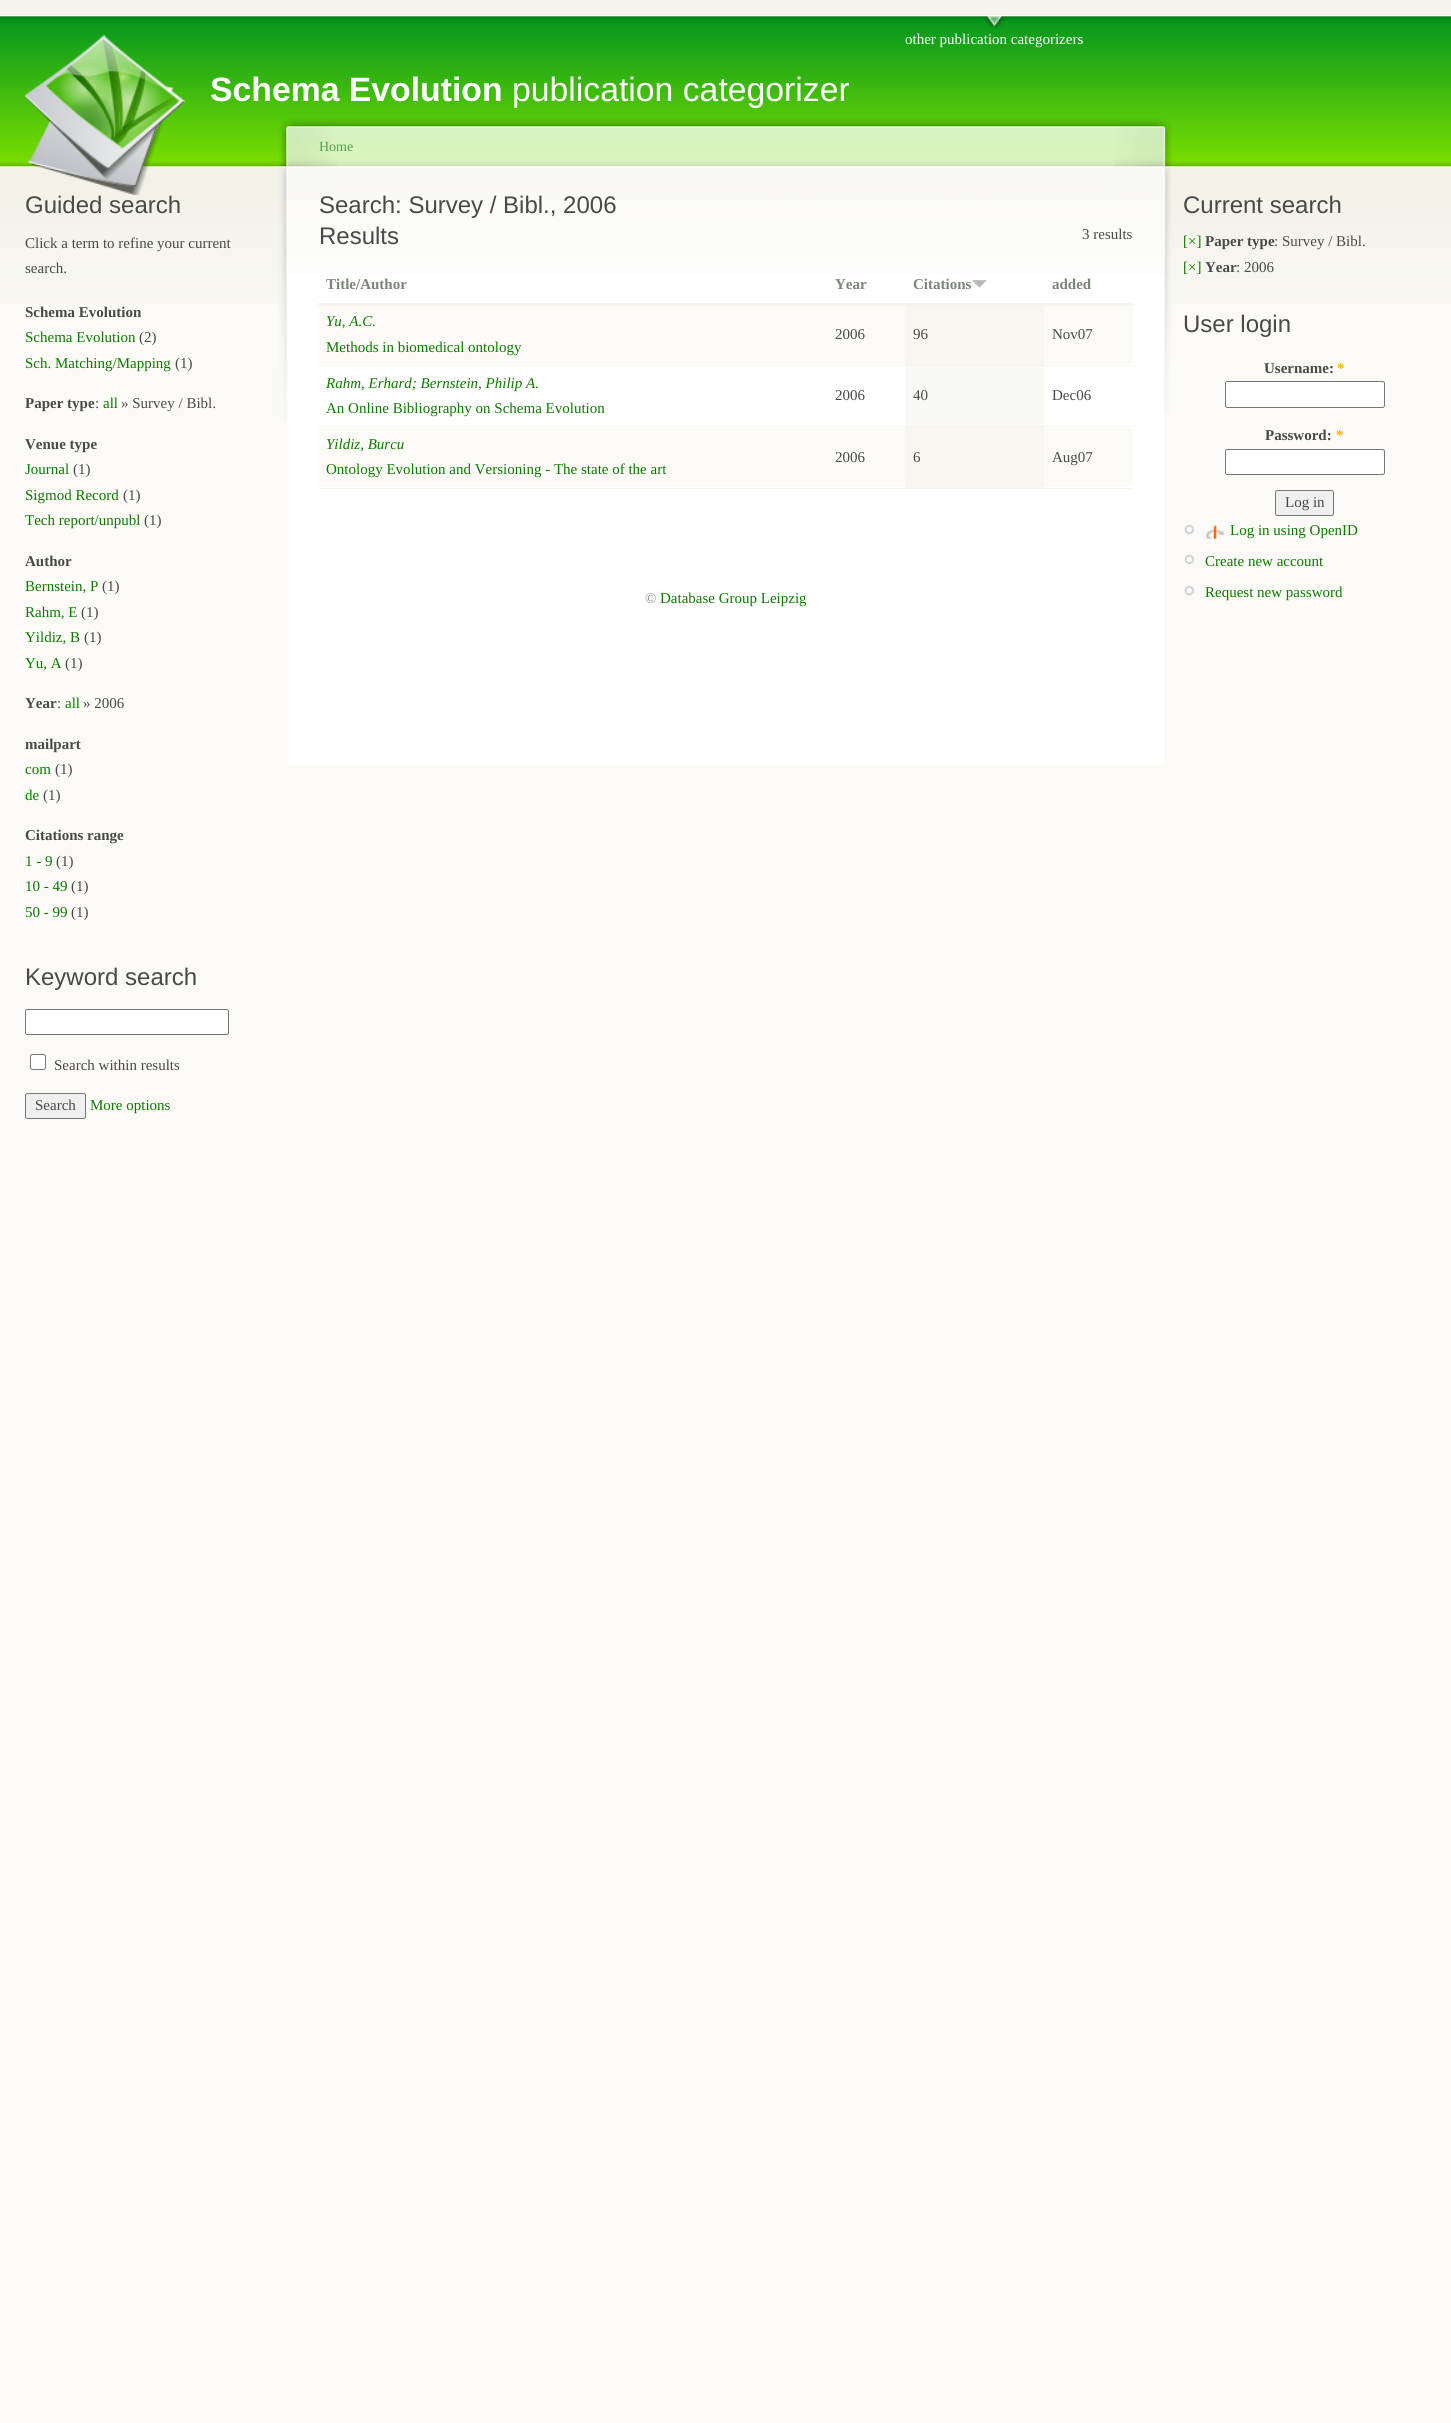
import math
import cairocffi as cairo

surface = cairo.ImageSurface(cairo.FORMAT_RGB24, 1451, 2423)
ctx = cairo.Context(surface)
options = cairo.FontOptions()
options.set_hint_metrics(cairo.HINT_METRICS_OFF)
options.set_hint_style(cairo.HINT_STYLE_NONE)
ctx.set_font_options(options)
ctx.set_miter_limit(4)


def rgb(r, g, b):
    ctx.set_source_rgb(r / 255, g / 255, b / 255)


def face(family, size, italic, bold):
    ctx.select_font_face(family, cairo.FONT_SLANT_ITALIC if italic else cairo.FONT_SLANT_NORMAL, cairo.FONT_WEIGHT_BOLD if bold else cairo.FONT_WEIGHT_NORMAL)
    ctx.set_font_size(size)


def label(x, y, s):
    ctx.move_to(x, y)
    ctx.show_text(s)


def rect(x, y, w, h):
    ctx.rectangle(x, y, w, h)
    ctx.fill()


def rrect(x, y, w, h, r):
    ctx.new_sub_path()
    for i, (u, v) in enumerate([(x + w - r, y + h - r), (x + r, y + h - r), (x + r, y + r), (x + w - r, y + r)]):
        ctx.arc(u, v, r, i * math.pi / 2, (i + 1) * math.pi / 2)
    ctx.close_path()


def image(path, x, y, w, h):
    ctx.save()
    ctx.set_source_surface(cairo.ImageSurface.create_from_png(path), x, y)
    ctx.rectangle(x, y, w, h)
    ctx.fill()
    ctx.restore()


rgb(251, 250, 247)
ctx.paint()
rgb(245, 244, 236)
rect(0, 0, 1451, 15)
image('image0.png', 0, 15, 1451, 289)
image('image1.png', 984, 16, 21, 13)
face('Liberation Serif', 15, 0, 0)
rgb(255, 255, 255)
label(905, 44, 'other publication categorizers')
image('image2.png', 25, 35, 160, 160)
face('Liberation Sans', 33.75, 0, 1)
label(210, 101, 'Schema Evolution')
face('Liberation Sans', 33.75, 0, 0)
label(512, 101, 'publication categorizer')
face('Liberation Sans', 24, 0, 0)
rgb(73, 73, 73)
label(25, 213, 'Guided search')
face('Liberation Serif', 15, 0, 0)
label(25, 248, 'Click a term to refine your current')
label(25, 273, 'search.')
face('Liberation Serif', 15, 0, 1)
label(25, 317, 'Schema Evolution')
face('Liberation Serif', 15, 0, 0)
rgb(12, 122, 0)
label(25, 342, 'Schema Evolution')
rgb(73, 73, 73)
label(139, 342, '(2)')
rgb(12, 122, 0)
label(25, 368, 'Sch. Matching/Mapping')
rgb(73, 73, 73)
label(175, 368, '(1)')
face('Liberation Serif', 15, 0, 1)
label(25, 408, 'Paper type')
face('Liberation Serif', 15, 0, 0)
label(95, 408, ':')
rgb(12, 122, 0)
label(103, 408, 'all')
rgb(73, 73, 73)
label(121, 408, '» Survey / Bibl.')
face('Liberation Serif', 15, 0, 1)
label(25, 449, 'Venue type')
face('Liberation Serif', 15, 0, 0)
rgb(12, 122, 0)
label(25, 474, 'Journal')
rgb(73, 73, 73)
label(73, 474, '(1)')
rgb(12, 122, 0)
label(25, 500, 'Sigmod Record')
rgb(73, 73, 73)
label(123, 500, '(1)')
rgb(12, 122, 0)
label(25, 525, 'Tech report/unpubl')
rgb(73, 73, 73)
label(144, 525, '(1)')
face('Liberation Serif', 15, 0, 1)
label(25, 566, 'Author')
face('Liberation Serif', 15, 0, 0)
rgb(12, 122, 0)
label(25, 591, 'Bernstein, P')
rgb(73, 73, 73)
label(102, 591, '(1)')
rgb(12, 122, 0)
label(25, 617, 'Rahm, E')
rgb(73, 73, 73)
label(81, 617, '(1)')
rgb(12, 122, 0)
label(25, 642, 'Yildiz, B')
rgb(73, 73, 73)
label(84, 642, '(1)')
rgb(12, 122, 0)
label(25, 668, 'Yu, A')
rgb(73, 73, 73)
label(65, 668, '(1)')
face('Liberation Serif', 15, 0, 1)
label(25, 708, 'Year')
face('Liberation Serif', 15, 0, 0)
label(57, 708, ':')
rgb(12, 122, 0)
label(65, 708, 'all')
rgb(73, 73, 73)
label(83, 708, '» 2006')
face('Liberation Serif', 15, 0, 1)
label(25, 749, 'mailpart')
face('Liberation Serif', 15, 0, 0)
rgb(12, 122, 0)
label(25, 774, 'com')
rgb(73, 73, 73)
label(55, 774, '(1)')
rgb(12, 122, 0)
label(25, 800, 'de')
rgb(73, 73, 73)
label(43, 800, '(1)')
face('Liberation Serif', 15, 0, 1)
label(25, 840, 'Citations range')
face('Liberation Serif', 15, 0, 0)
rgb(12, 122, 0)
label(25, 866, '1 - 9')
rgb(73, 73, 73)
label(56, 866, '(1)')
rgb(12, 122, 0)
label(25, 891, '10 - 49')
rgb(73, 73, 73)
label(71, 891, '(1)')
rgb(12, 122, 0)
label(25, 917, '50 - 99')
rgb(73, 73, 73)
label(71, 917, '(1)')
face('Liberation Sans', 24, 0, 0)
label(25, 985, 'Keyword search')
rgb(255, 255, 255)
rrect(25.5, 1009.5, 203, 25, 2)
ctx.fill_preserve()
rgb(118, 118, 118)
ctx.set_line_width(1)
ctx.stroke()
rgb(255, 255, 255)
rrect(30.5, 1054.5, 15, 15, 2)
ctx.fill_preserve()
rgb(118, 118, 118)
ctx.stroke()
face('Liberation Serif', 15, 0, 0)
rgb(73, 73, 73)
label(54, 1070, 'Search within results')
rgb(239, 239, 239)
rrect(25.5, 1093.5, 60, 25, 2)
ctx.fill_preserve()
rgb(118, 118, 118)
ctx.stroke()
rgb(73, 73, 73)
label(35, 1110, 'Search')
rgb(12, 122, 0)
label(90, 1110, 'More options')
rgb(255, 255, 255)
rect(288, 366, 876, 399)
image('image3.png', 287, 115, 827, 250)
image('image4.png', 1114, 115, 58, 299)
image('image5.png', 278, 120, 59, 302)
face('Liberation Serif', 14, 0, 0)
rgb(82, 162, 79)
label(319, 151, 'Home')
face('Liberation Sans', 24, 0, 0)
rgb(73, 73, 73)
label(319, 213, 'Search: Survey / Bibl., 2006')
label(319, 244, 'Results')
face('Liberation Serif', 15, 0, 1)
rgb(120, 133, 119)
label(326, 289, 'Title/Author')
label(835, 289, 'Year')
label(913, 289, 'Citations')
image('image6.png', 972, 280, 15, 8)
rgb(246, 245, 237)
rect(318, 303, 816, 3)
rgb(120, 133, 119)
label(1052, 289, 'added')
rgb(251, 250, 247)
rect(319, 306, 814, 58)
face('Liberation Serif', 15, 1, 0)
rgb(12, 122, 0)
label(326, 326, 'Yu, A.C.')
face('Liberation Serif', 15, 0, 0)
label(326, 352, 'Methods in biomedical ontology')
rgb(73, 73, 73)
label(835, 339, '2006')
rgb(247, 246, 241)
rect(905, 306, 139, 59)
rgb(73, 73, 73)
label(913, 339, '96')
label(1052, 339, 'Nov07')
rgb(246, 245, 237)
rect(319, 365, 815, 1)
face('Liberation Serif', 15, 1, 0)
rgb(12, 122, 0)
label(326, 388, 'Rahm, Erhard; Bernstein, Philip A.')
face('Liberation Serif', 15, 0, 0)
label(326, 413, 'An Online Bibliography on Schema Evolution')
rgb(73, 73, 73)
label(835, 400, '2006')
rgb(248, 248, 244)
rect(905, 366, 139, 60)
rgb(73, 73, 73)
label(913, 400, '40')
label(1052, 400, 'Dec06')
rgb(251, 250, 247)
rect(319, 428, 814, 58)
rgb(246, 245, 237)
rect(319, 426, 815, 1)
rect(319, 488, 815, 1)
face('Liberation Serif', 15, 1, 0)
rgb(12, 122, 0)
label(326, 449, 'Yildiz, Burcu')
face('Liberation Serif', 15, 0, 0)
label(326, 474, 'Ontology Evolution and Versioning - The state of the art')
rgb(73, 73, 73)
label(835, 462, '2006')
rgb(247, 246, 241)
rect(905, 427, 139, 61)
rgb(73, 73, 73)
label(913, 462, '6')
label(1052, 462, 'Aug07')
label(1082, 239, '3 results')
rgb(137, 137, 137)
label(645, 603, '©')
rgb(12, 122, 0)
label(660, 603, 'Database Group Leipzig')
face('Liberation Sans', 24, 0, 0)
rgb(73, 73, 73)
label(1183, 213, 'Current search')
face('Liberation Serif', 15, 0, 0)
rgb(12, 122, 0)
label(1183, 246, '[×]')
face('Liberation Serif', 15, 0, 1)
rgb(73, 73, 73)
label(1205, 246, 'Paper type')
face('Liberation Serif', 15, 0, 0)
label(1274, 246, ': Survey / Bibl.')
rgb(12, 122, 0)
label(1183, 272, '[×]')
face('Liberation Serif', 15, 0, 1)
rgb(73, 73, 73)
label(1205, 272, 'Year')
face('Liberation Serif', 15, 0, 0)
label(1236, 272, ': 2006')
face('Liberation Sans', 24, 0, 0)
label(1183, 332, 'User login')
face('Liberation Serif', 15, 0, 1)
label(1264, 373, 'Username:')
rgb(255, 174, 0)
label(1337, 373, '*')
rgb(255, 255, 255)
rrect(1225.5, 381.5, 159, 26, 2)
ctx.fill_preserve()
rgb(118, 118, 118)
ctx.stroke()
rgb(73, 73, 73)
label(1265, 440, 'Password:')
rgb(255, 174, 0)
label(1336, 440, '*')
rgb(255, 255, 255)
rrect(1225.5, 449.5, 159, 25, 2)
ctx.fill_preserve()
rgb(118, 118, 118)
ctx.stroke()
rgb(239, 239, 239)
rrect(1275.5, 490.5, 58, 25, 2)
ctx.fill_preserve()
rgb(118, 118, 118)
ctx.stroke()
face('Liberation Serif', 15, 0, 0)
rgb(73, 73, 73)
label(1285, 507, 'Log in')
image('image7.png', 1185, 525, 9, 9)
image('image8.png', 1206, 524, 18, 15)
rgb(12, 122, 0)
label(1230, 535, 'Log in using OpenID')
image('image7.png', 1185, 555, 9, 9)
label(1205, 566, 'Create new account')
image('image9.png', 1185, 586, 9, 10)
label(1205, 597, 'Request new password')
surface.write_to_png('render.png')
